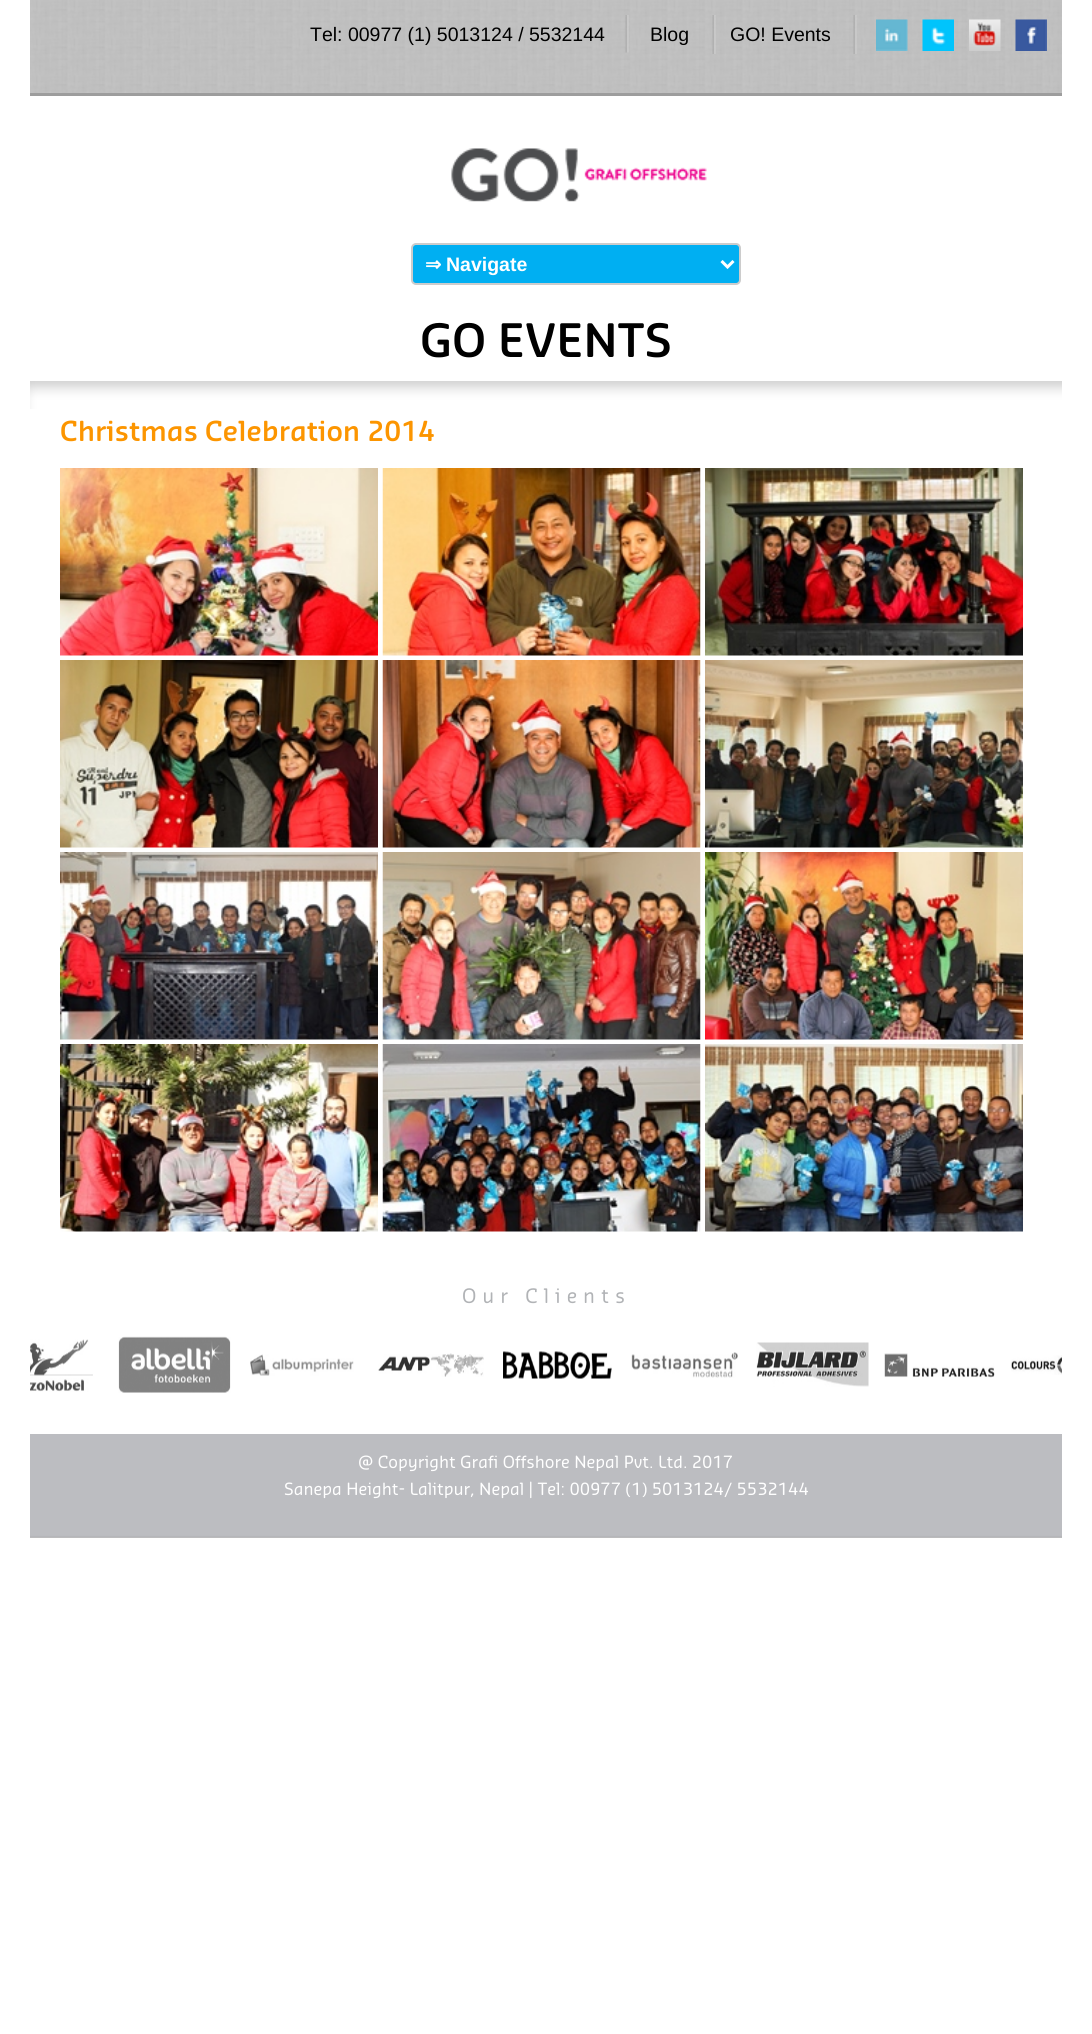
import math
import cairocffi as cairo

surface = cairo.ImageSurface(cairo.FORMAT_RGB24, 1092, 2034)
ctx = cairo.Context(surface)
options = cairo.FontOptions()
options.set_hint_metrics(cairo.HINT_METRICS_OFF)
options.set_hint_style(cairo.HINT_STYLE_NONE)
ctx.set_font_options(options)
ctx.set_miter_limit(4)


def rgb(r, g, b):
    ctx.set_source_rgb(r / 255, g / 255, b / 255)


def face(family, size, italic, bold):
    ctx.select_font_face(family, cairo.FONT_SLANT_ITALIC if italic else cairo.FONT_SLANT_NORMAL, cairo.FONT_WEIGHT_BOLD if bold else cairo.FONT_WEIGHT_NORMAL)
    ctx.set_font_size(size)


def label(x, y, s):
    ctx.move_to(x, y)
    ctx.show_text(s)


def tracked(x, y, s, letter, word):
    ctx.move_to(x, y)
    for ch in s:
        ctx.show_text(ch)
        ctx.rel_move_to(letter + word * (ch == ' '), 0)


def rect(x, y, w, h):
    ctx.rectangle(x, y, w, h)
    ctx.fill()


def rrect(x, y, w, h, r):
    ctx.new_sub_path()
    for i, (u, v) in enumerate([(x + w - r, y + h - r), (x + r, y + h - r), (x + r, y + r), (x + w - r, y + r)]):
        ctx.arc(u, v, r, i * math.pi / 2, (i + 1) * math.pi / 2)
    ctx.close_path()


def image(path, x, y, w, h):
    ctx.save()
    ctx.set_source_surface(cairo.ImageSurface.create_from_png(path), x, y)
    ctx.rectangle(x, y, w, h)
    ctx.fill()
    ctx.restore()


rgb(255, 255, 255)
ctx.paint()
image('image0.png', 30, 0, 1032, 93)
rgb(157, 157, 157)
rect(30, 93, 1032, 3)
image('image1.png', 625, 15, 4, 38)
face('Liberation Sans', 19.5, 0, 0)
rgb(0, 0, 0)
label(310, 41, 'Tel: 00977 (1) 5013124 / 5532144')
label(650, 41, 'Blog')
image('image2.png', 712, 15, 4, 39)
label(730, 41, 'GO! Events')
image('image3.png', 853, 15, 4, 39)
image('image4.png', 876, 19, 32, 32)
image('image5.png', 922, 19, 32, 32)
image('image6.png', 969, 19, 32, 32)
image('image7.png', 1015, 19, 32, 32)
image('image8.png', 451, 148, 256, 54)
rgb(0, 175, 242)
rrect(412, 244, 328, 40, 4)
ctx.fill_preserve()
rgb(204, 204, 204)
ctx.stroke()
ctx.new_path()
ctx.move_to(721.5, 261)
ctx.line_to(727.5, 267)
ctx.line_to(733.5, 261)
rgb(255, 255, 255)
ctx.set_line_width(3)
ctx.stroke()
face('DejaVu Sans', 19.5, 0, 1)
label(425, 271, '⇒')
face('Liberation Sans', 19.5, 0, 1)
label(446, 271, 'Navigate')
face('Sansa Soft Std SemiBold', 45, 0, 0)
rgb(0, 0, 0)
label(420, 357, 'GO EVENTS')
image('image9.png', 30, 381, 1032, 28)
face('Sansa Soft Std SemiBold', 27, 0, 0)
rgb(252, 149, 0)
label(60, 441, 'Christmas Celebration 2014')
image('image10.png', 60, 468, 318, 188)
image('image11.png', 382, 468, 319, 188)
image('image12.png', 705, 468, 318, 188)
image('image13.png', 60, 660, 318, 188)
image('image14.png', 382, 660, 319, 188)
image('image15.png', 705, 660, 318, 188)
image('image16.png', 60, 852, 318, 188)
image('image17.png', 382, 852, 319, 188)
image('image18.png', 705, 852, 318, 188)
image('image19.png', 60, 1044, 318, 188)
image('image20.png', 382, 1044, 319, 188)
image('image21.png', 705, 1044, 318, 188)
face('Sansa Soft Std', 19.5, 0, 0)
rgb(177, 179, 182)
tracked(462, 1303, 'Our Clients', 6, 0)
image('image22.png', 30, 1339, 63, 53)
image('image23.png', 118, 1336, 113, 57)
image('image24.png', 250, 1354, 104, 22)
image('image25.png', 378, 1353, 106, 24)
image('image26.png', 503, 1351, 109, 28)
image('image27.png', 631, 1352, 107, 26)
image('image28.png', 756, 1342, 113, 45)
image('image29.png', 884, 1353, 111, 25)
image('image30.png', 1011, 1355, 51, 20)
image('image31.png', 30, 1434, 1032, 104)
face('Sansa Soft Std', 16.5, 0, 0)
rgb(255, 255, 255)
label(358, 1468, '@ Copyright Grafi Offshore Nepal Pvt. Ltd. 2017')
label(284, 1495, 'Sanepa Height- Lalitpur, Nepal | Tel: 00977 (1) 5013124/ 5532144')
surface.write_to_png('render.png')
